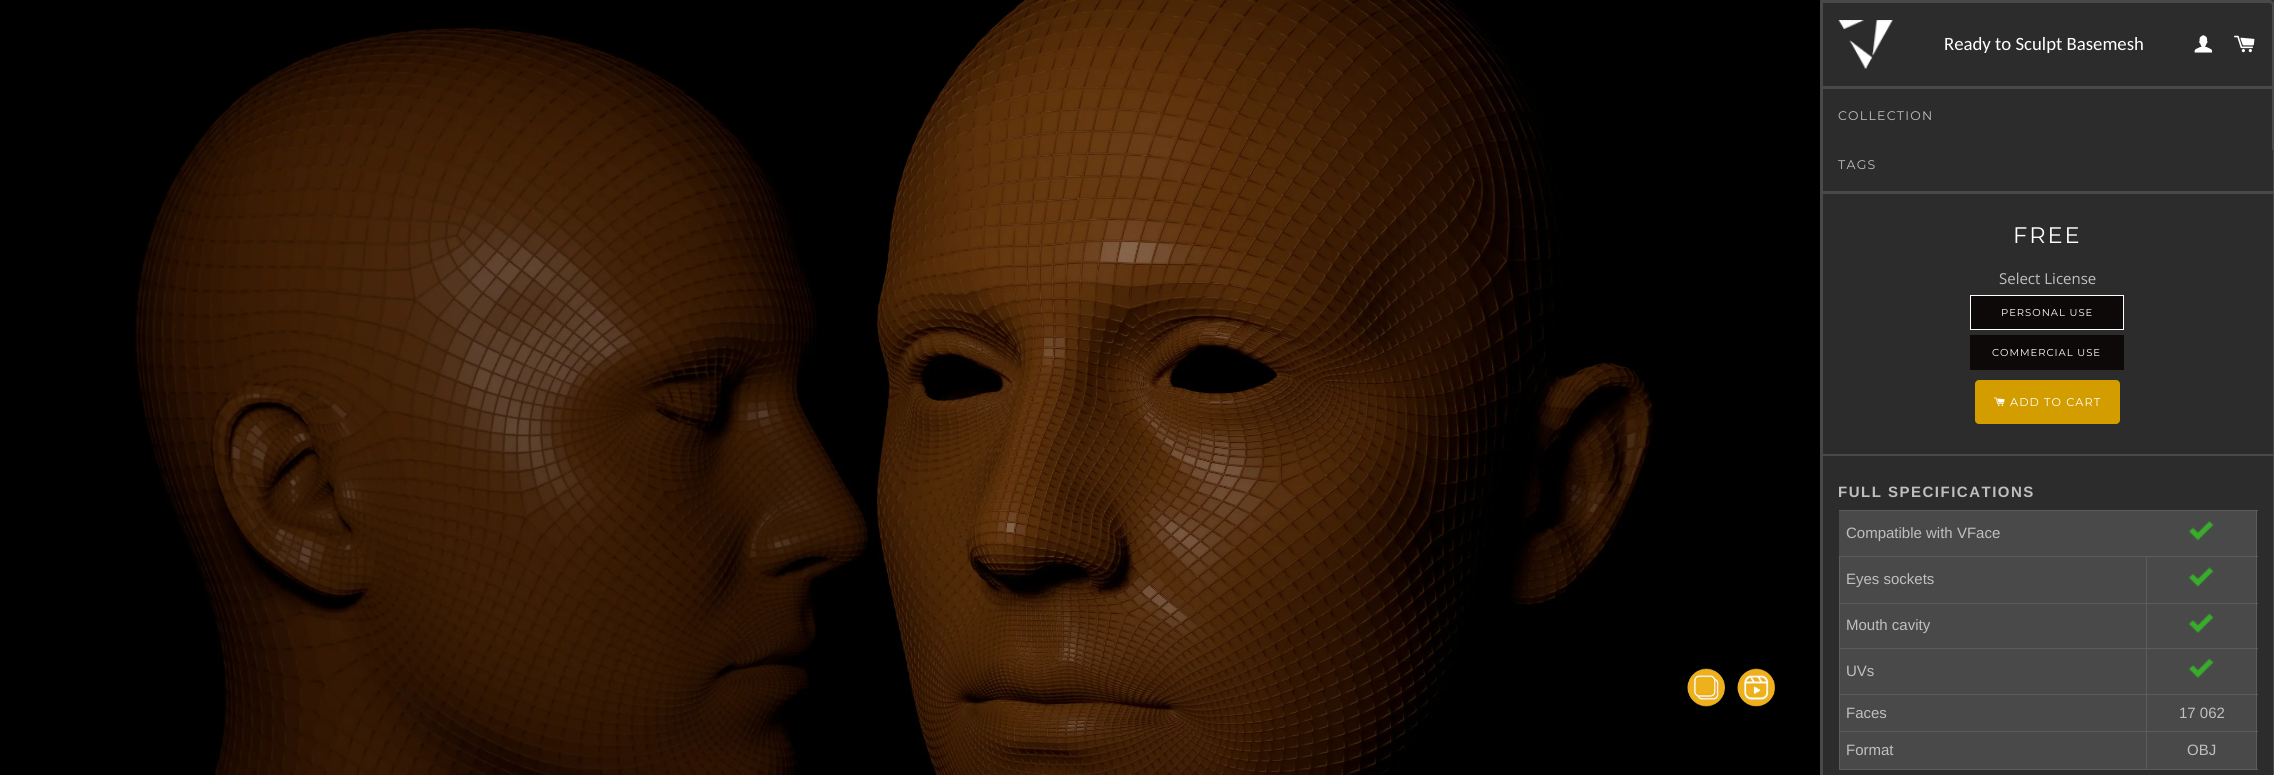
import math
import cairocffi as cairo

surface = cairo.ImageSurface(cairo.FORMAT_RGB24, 2274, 775)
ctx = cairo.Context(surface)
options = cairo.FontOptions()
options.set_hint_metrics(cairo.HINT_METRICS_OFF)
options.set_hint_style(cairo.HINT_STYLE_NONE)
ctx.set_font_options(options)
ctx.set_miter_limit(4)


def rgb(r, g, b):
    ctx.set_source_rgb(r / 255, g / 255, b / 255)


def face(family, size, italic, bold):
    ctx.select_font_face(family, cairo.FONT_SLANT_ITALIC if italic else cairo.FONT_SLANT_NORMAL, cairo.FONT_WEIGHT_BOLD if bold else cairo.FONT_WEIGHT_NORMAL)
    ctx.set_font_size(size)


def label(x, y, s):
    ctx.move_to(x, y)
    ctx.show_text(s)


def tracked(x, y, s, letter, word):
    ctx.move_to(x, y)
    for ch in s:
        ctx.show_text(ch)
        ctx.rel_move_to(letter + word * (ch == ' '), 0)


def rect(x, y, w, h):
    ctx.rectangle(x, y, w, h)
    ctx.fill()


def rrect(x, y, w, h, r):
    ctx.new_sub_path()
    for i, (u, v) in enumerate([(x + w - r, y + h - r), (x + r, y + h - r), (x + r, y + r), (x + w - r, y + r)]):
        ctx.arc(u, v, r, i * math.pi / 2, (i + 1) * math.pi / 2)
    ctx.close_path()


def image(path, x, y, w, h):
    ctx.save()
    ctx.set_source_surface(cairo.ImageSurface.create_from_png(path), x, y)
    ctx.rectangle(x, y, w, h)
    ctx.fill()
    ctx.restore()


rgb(0, 0, 0)
ctx.paint()
image('image0.png', 135, 0, 1518, 775)
image('image1.png', 1687, 668, 38, 39)
image('image2.png', 1737, 668, 38, 39)
rgb(44, 44, 44)
rect(1823, 0, 451, 150)
ctx.new_path()
ctx.move_to(1821.5, 1.5)
ctx.line_to(2269, 1.5)
ctx.curve_to(2271.5, 1.5, 2273.5, 3.5, 2273.5, 6)
ctx.line_to(2273.5, 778)
ctx.curve_to(2273.5, 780.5, 2271.5, 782.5, 2269, 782.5)
ctx.line_to(1821.5, 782.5)
ctx.close_path()
rgb(73, 73, 73)
ctx.set_line_width(3)
ctx.stroke()
image('image3.png', 1838, 20, 55, 49)
face('Carlito', 18.75, 0, 0)
rgb(255, 255, 255)
label(1944, 50, 'Ready to Sculpt Basemesh')
image('image4.png', 2194, 35, 19, 18)
image('image5.png', 2234, 35, 21, 18)
rgb(73, 73, 73)
rect(1823, 86, 450, 3)
face('Montserrat Thin', 12.5, 0, 0)
rgb(191, 191, 191)
tracked(1838, 120, 'COLLECTION', 1.25, 0)
rgb(44, 44, 44)
rect(1823, 150, 450, 41)
rgb(191, 191, 191)
tracked(1838, 169, 'TAGS', 1.25, 0)
rgb(73, 73, 73)
rect(1823, 191, 450, 3)
rgb(44, 44, 44)
rect(1823, 194, 450, 260)
face('Montserrat Thin', 22.5, 0, 0)
rgb(255, 255, 255)
tracked(2013, 243, 'FREE', 2, 0)
face('Open Sans', 15, 0, 0)
rgb(191, 191, 191)
label(1999, 284, 'Select License')
rgb(13, 9, 9)
ctx.rectangle(1970.5, 295.5, 153, 34)
ctx.fill_preserve()
rgb(255, 255, 255)
ctx.set_line_width(1)
ctx.stroke()
face('Montserrat Thin', 10, 0, 0)
tracked(2001, 316, 'PERSONAL USE', 1, 0)
rgb(13, 9, 9)
rect(1970, 335, 154, 35)
rgb(255, 255, 255)
tracked(1992, 356, 'COMMERCIAL USE', 1, 0)
rgb(211, 157, 0)
rrect(1975, 380, 145, 44, 4)
ctx.fill()
image('image6.png', 1993, 397, 12, 9)
face('Montserrat Thin', 11.25, 0, 0)
rgb(255, 255, 255)
tracked(2010, 406, 'ADD TO CART', 1.1, 0)
rgb(73, 73, 73)
rect(1823, 454, 450, 2)
rgb(44, 44, 44)
rect(1823, 456, 450, 319)
face('Liberation Sans', 15, 0, 1)
rgb(191, 191, 191)
tracked(1838, 497, 'FULL SPECIFICATIONS', 1.5, 0)
rgb(92, 92, 92)
rect(1839, 510, 419, 1)
rect(2146, 556, 112, 1)
rect(2146, 603, 112, 1)
rect(2146, 648, 112, 1)
rect(2146, 694, 112, 1)
rect(2146, 731, 112, 1)
rect(2256, 731, 1, 39)
rect(2256, 694, 1, 39)
rect(2256, 648, 1, 47)
rect(2256, 603, 1, 46)
rect(2256, 556, 1, 48)
rect(2256, 510, 1, 48)
rgb(73, 73, 73)
rect(1840, 557, 416, 46)
rect(1840, 604, 416, 44)
rect(1840, 649, 416, 45)
rect(1840, 695, 416, 36)
rect(1840, 732, 416, 37)
rgb(92, 92, 92)
rect(2146, 769, 112, 1)
rect(2146, 731, 1, 39)
rect(1839, 731, 309, 1)
rect(2146, 694, 1, 39)
rect(1839, 694, 309, 1)
rect(2146, 648, 1, 47)
rect(1839, 648, 309, 1)
rect(2146, 603, 1, 46)
rect(1839, 603, 309, 1)
rect(2146, 556, 1, 48)
rect(1839, 556, 309, 1)
rect(1839, 769, 309, 1)
rect(1839, 731, 1, 39)
rect(1839, 694, 1, 39)
rect(1839, 648, 1, 47)
rect(1839, 603, 1, 46)
rect(1839, 556, 1, 48)
rect(1839, 510, 1, 48)
rgb(73, 73, 73)
rect(1839, 511, 417, 45)
image('image7.png', 2188, 521, 26, 20)
face('Liberation Sans', 15, 0, 0)
rgb(191, 191, 191)
label(1846, 538, 'Compatible with VFace')
label(1846, 584, 'Eyes sockets')
image('image8.png', 2188, 567, 26, 20)
label(1846, 630, 'Mouth cavity')
image('image9.png', 2188, 613, 26, 20)
label(1846, 676, 'UVs')
image('image9.png', 2188, 658, 26, 20)
label(1846, 718, 'Faces')
label(2179, 718, '17 062')
label(1846, 755, 'Format')
label(2187, 755, 'OBJ')
surface.write_to_png('render.png')
